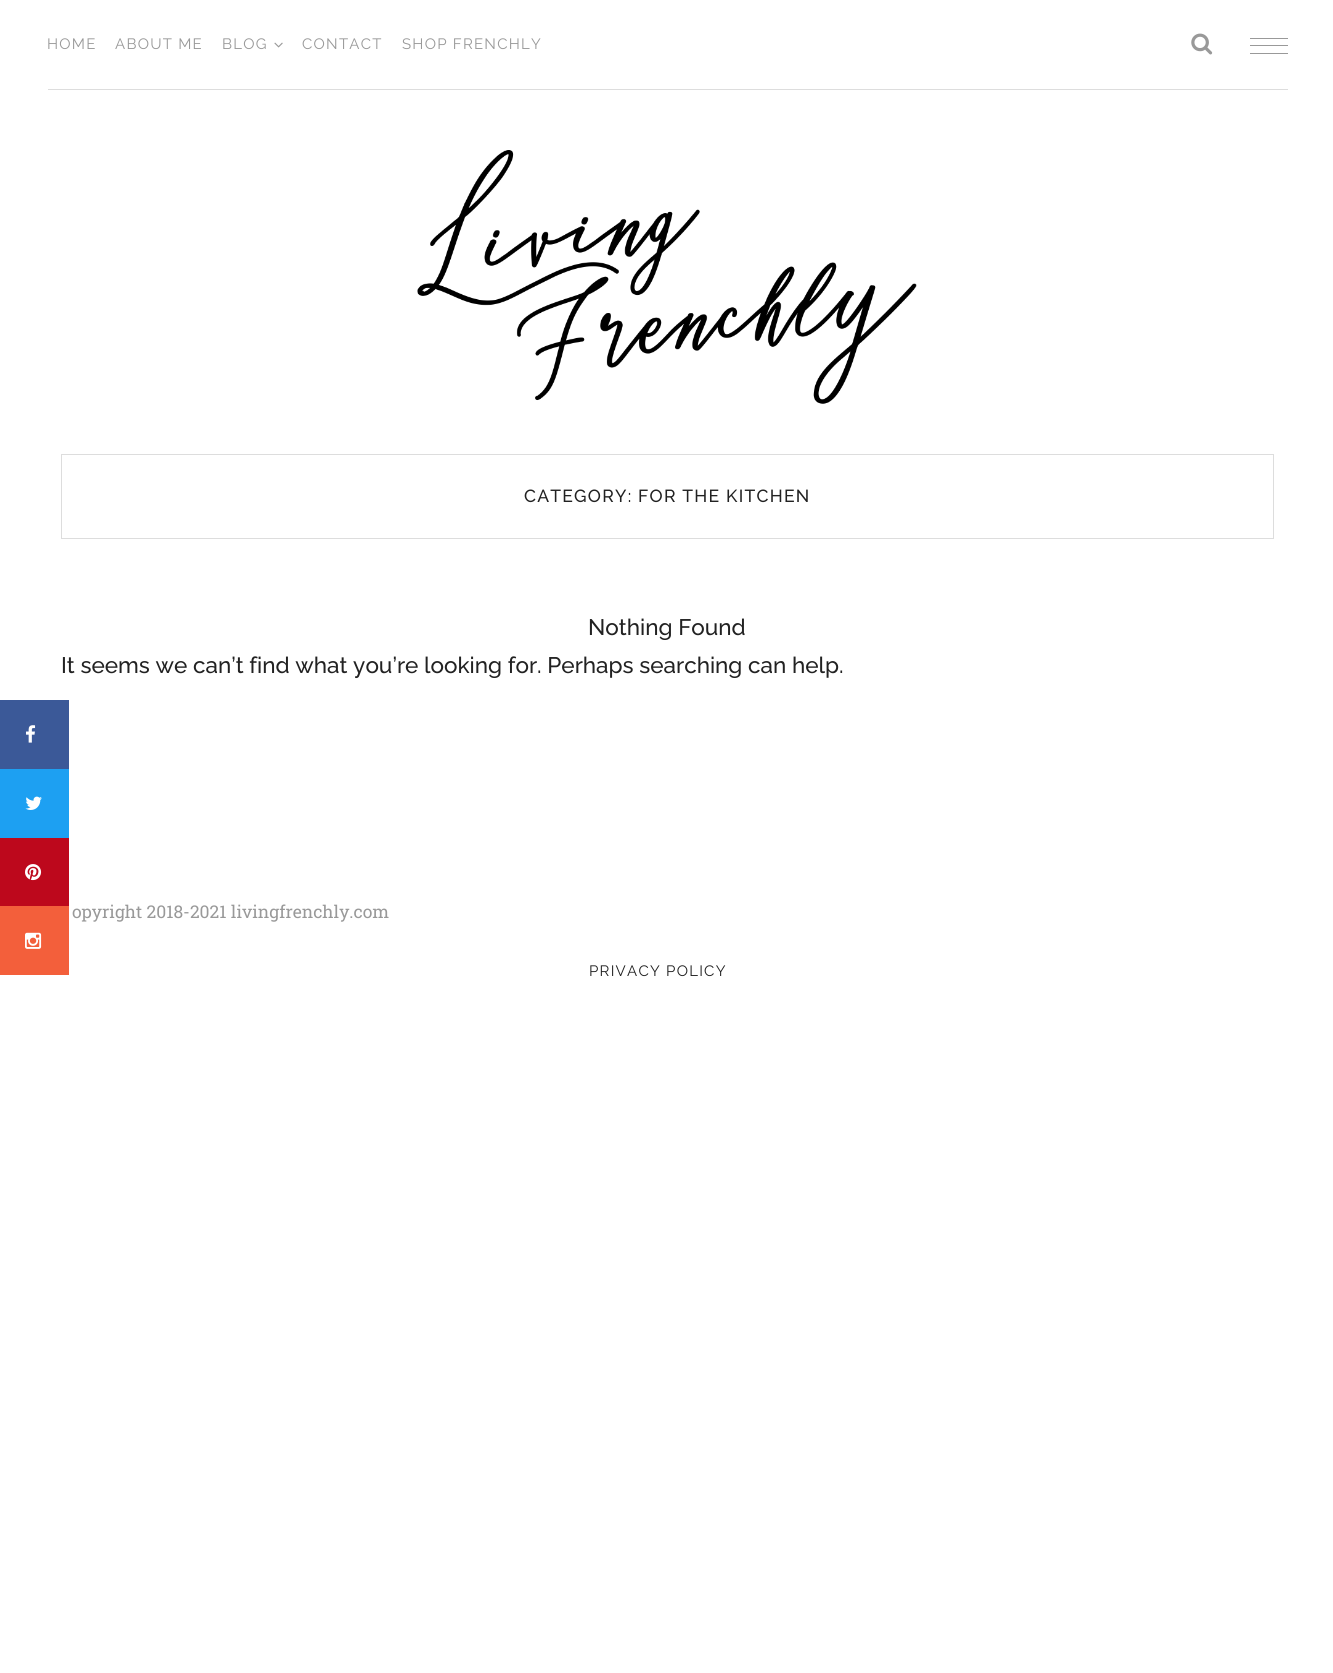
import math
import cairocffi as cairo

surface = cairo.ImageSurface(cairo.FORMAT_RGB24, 1333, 1673)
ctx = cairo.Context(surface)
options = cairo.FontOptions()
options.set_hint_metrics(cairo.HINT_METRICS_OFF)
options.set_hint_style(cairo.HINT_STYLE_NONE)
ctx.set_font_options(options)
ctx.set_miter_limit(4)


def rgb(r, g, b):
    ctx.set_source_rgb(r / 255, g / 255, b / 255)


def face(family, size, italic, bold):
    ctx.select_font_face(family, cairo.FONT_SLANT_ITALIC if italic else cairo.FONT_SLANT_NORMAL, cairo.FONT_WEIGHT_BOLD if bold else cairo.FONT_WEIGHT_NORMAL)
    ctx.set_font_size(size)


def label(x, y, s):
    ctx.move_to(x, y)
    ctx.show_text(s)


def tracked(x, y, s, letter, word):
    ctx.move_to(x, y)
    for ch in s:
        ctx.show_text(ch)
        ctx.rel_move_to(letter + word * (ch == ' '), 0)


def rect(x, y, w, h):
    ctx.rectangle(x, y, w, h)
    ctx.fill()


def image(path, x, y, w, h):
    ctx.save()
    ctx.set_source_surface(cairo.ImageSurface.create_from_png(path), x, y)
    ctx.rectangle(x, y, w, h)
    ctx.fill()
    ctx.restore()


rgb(255, 255, 255)
ctx.paint()
rgb(221, 221, 221)
rect(48, 89, 1240, 1)
face('Raleway', 15, 0, 0)
rgb(153, 153, 153)
tracked(47, 49, 'HOME', 1.25, 0)
tracked(115, 49, 'ABOUT ME', 1.25, 0)
tracked(222, 49, 'BLOG', 1.25, 0)
image('image0.png', 274, 42, 9, 6)
tracked(302, 49, 'CONTACT', 1.25, 0)
tracked(402, 49, 'SHOP FRENCHLY', 1.25, 0)
image('image1.png', 1191, 33, 22, 22)
rect(1250, 38, 38, 1)
rect(1250, 45, 38, 1)
rect(1250, 53, 38, 1)
image('image2.png', 417, 150, 500, 254)
rgb(59, 89, 152)
rect(0, 700, 69, 69)
image('image3.png', 26, 725, 10, 18)
rgb(29, 160, 242)
rect(0, 769, 69, 69)
image('image4.png', 25, 796, 17, 14)
rgb(189, 8, 28)
rect(0, 838, 69, 68)
image('image5.png', 25, 864, 17, 17)
rgb(243, 95, 59)
rect(0, 906, 69, 69)
image('image6.png', 25, 932, 17, 17)
ctx.rectangle(61.5, 454.5, 1212, 84)
rgb(221, 221, 221)
ctx.set_line_width(1)
ctx.stroke()
face('Raleway Medium', 17.5, 0, 0)
rgb(34, 34, 34)
tracked(524, 502, 'CATEGORY: FOR THE KITCHEN', 1.25, 0)
face('Raleway Medium', 22.5, 0, 0)
label(588, 635, 'Nothing Found')
label(61, 673, 'It seems we can’t find what you’re looking for. Perhaps searching can help.')
face('Roboto Slab', 17.5, 0, 0)
rgb(153, 153, 153)
label(72, 918, 'opyright 2018-2021 livingfrenchly.com')
face('Raleway', 15, 0, 0)
rgb(34, 34, 34)
tracked(589, 976, 'PRIVACY POLICY', 1.25, 0)
surface.write_to_png('render.png')
